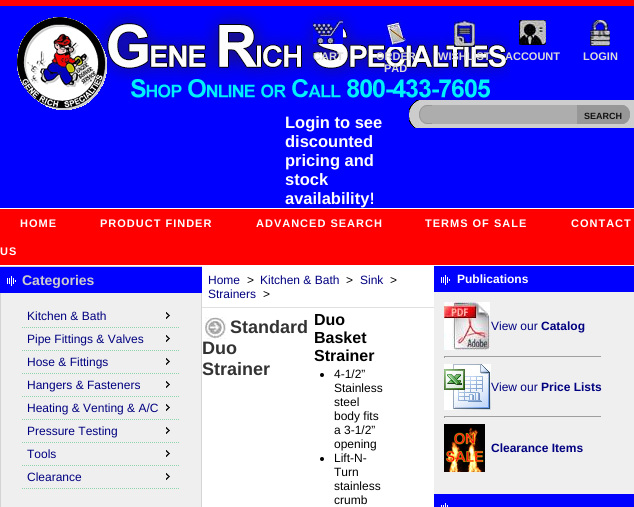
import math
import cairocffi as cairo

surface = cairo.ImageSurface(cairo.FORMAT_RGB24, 634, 507)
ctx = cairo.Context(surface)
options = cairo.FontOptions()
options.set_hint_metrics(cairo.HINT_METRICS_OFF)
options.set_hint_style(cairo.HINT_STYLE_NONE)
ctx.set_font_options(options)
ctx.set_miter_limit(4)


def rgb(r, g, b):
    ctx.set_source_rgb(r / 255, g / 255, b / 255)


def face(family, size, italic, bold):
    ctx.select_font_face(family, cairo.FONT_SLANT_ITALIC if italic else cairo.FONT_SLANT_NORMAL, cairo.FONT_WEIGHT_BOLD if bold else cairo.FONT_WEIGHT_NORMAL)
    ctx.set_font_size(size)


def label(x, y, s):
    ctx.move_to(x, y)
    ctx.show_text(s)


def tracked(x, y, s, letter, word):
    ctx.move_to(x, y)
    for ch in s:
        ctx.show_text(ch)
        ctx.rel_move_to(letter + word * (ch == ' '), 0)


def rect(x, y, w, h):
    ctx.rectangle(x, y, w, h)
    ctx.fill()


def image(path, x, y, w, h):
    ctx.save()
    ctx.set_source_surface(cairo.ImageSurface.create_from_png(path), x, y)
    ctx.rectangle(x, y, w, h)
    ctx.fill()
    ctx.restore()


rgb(255, 255, 255)
ctx.paint()
rgb(0, 0, 255)
rect(0, 6, 634, 202)
rgb(255, 0, 0)
rect(0, 0, 634, 6)
image('image0.png', 17, 10, 493, 100)
image('image1.png', 313, 20, 30, 24)
face('Liberation Sans', 11, 0, 1)
rgb(219, 219, 219)
label(313, 60, 'CART')
image('image2.png', 386, 20, 21, 27)
label(376, 60, 'ORDER')
label(384, 72, 'PAD')
image('image3.png', 454, 20, 21, 27)
label(438, 60, 'WISHLIST')
image('image4.png', 519, 20, 27, 25)
label(505, 60, 'ACCOUNT')
image('image5.png', 590, 20, 20, 26)
label(583, 60, 'LOGIN')
rgb(206, 206, 206)
rect(419, 100, 215, 28)
image('image6.png', 409, 100, 10, 28)
image('image7.png', 419, 105, 13, 19)
rgb(173, 173, 173)
rect(432, 105, 145, 19)
image('image8.png', 577, 105, 53, 19)
face('Liberation Sans', 9, 0, 1)
rgb(18, 18, 18)
label(584, 119, 'SEARCH')
face('Liberation Sans', 16.5, 0, 1)
rgb(255, 255, 255)
label(285, 128, 'Login to see')
label(285, 147, 'discounted')
label(285, 166, 'pricing and')
label(285, 185, 'stock')
label(285, 204, 'availability!')
rgb(255, 0, 0)
rect(0, 209, 634, 56)
face('Liberation Sans', 11, 0, 1)
rgb(255, 255, 255)
tracked(20, 227, 'HOME', 1, 0)
tracked(100, 227, 'PRODUCT FINDER', 1, 0)
tracked(256, 227, 'ADVANCED SEARCH', 1, 0)
tracked(425, 227, 'TERMS OF SALE', 1, 0)
tracked(571, 227, 'CONTACT', 1, 0)
tracked(0, 255, 'US', 1, 0)
rgb(239, 239, 239)
rect(1, 293, 200, 214)
ctx.rectangle(0.5, 266.5, 201, 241)
rgb(212, 212, 212)
ctx.set_line_width(1)
ctx.stroke()
rgb(0, 0, 255)
rect(0, 267, 202, 26)
image('image9.png', 7, 276, 9, 10)
face('Liberation Sans', 14, 0, 1)
rgb(205, 205, 205)
label(22, 285, 'Categories')
ctx.new_path()
ctx.move_to(22, 327.5)
ctx.line_to(180, 327.5)
rgb(141, 212, 170)
ctx.set_dash([1, 1])
ctx.stroke()
face('Liberation Sans', 12, 0, 0)
rgb(0, 0, 128)
label(27, 320, 'Kitchen & Bath')
image('image10.png', 166, 312, 4, 7)
ctx.new_path()
ctx.move_to(22, 350.5)
ctx.line_to(180, 350.5)
rgb(141, 212, 170)
ctx.stroke()
rgb(0, 0, 128)
label(27, 343, 'Pipe Fittings & Valves')
image('image10.png', 166, 335, 4, 7)
ctx.new_path()
ctx.move_to(22, 373.5)
ctx.line_to(180, 373.5)
rgb(141, 212, 170)
ctx.stroke()
rgb(0, 0, 128)
label(27, 366, 'Hose & Fittings')
image('image10.png', 166, 358, 4, 7)
ctx.new_path()
ctx.move_to(22, 396.5)
ctx.line_to(180, 396.5)
rgb(141, 212, 170)
ctx.stroke()
rgb(0, 0, 128)
label(27, 389, 'Hangers & Fasteners')
image('image10.png', 166, 381, 4, 7)
ctx.new_path()
ctx.move_to(22, 419.5)
ctx.line_to(180, 419.5)
rgb(141, 212, 170)
ctx.stroke()
rgb(0, 0, 128)
label(27, 412, 'Heating & Venting & A/C')
image('image10.png', 166, 404, 4, 7)
ctx.new_path()
ctx.move_to(22, 442.5)
ctx.line_to(180, 442.5)
rgb(141, 212, 170)
ctx.stroke()
rgb(0, 0, 128)
label(27, 435, 'Pressure Testing')
image('image10.png', 166, 427, 4, 7)
ctx.new_path()
ctx.move_to(22, 465.5)
ctx.line_to(180, 465.5)
rgb(141, 212, 170)
ctx.stroke()
rgb(0, 0, 128)
label(27, 458, 'Tools')
image('image10.png', 166, 450, 4, 7)
ctx.new_path()
ctx.move_to(22, 488.5)
ctx.line_to(180, 488.5)
rgb(141, 212, 170)
ctx.stroke()
rgb(0, 0, 128)
label(27, 481, 'Clearance')
image('image10.png', 166, 473, 4, 7)
label(208, 284, 'Home')
rgb(0, 0, 0)
label(247, 284, '>')
rgb(0, 0, 128)
label(260, 284, 'Kitchen & Bath')
rgb(0, 0, 0)
label(346, 284, '>')
rgb(0, 0, 128)
label(360, 284, 'Sink')
rgb(0, 0, 0)
label(390, 284, '>')
rgb(0, 0, 128)
label(208, 298, 'Strainers')
rgb(0, 0, 0)
label(263, 298, '>')
rgb(225, 225, 225)
rect(202, 307, 234, 1)
image('image11.png', 205, 317, 21, 22)
face('Liberation Sans', 18, 0, 1)
rgb(51, 51, 51)
label(230, 333, 'Standard')
label(202, 354, 'Duo')
label(202, 375, 'Strainer')
face('Liberation Sans', 16, 0, 1)
rgb(0, 0, 0)
label(314, 325, 'Duo')
label(314, 343, 'Basket')
label(314, 361, 'Strainer')
ctx.new_path()
ctx.arc(322, 375, 2, 0, 2 * math.pi)
ctx.fill()
face('Liberation Sans', 12, 0, 0)
label(334, 378, '4-1/2”')
label(334, 392, 'Stainless')
label(334, 406, 'steel')
label(334, 420, 'body fits')
label(334, 434, 'a 3-1/2”')
label(334, 448, 'opening')
ctx.new_path()
ctx.arc(322, 459, 2, 0, 2 * math.pi)
ctx.fill()
label(334, 462, 'Lift-N-')
label(334, 476, 'Turn')
label(334, 490, 'stainless')
label(334, 504, 'crumb')
rgb(239, 239, 239)
rect(434, 292, 200, 202)
rgb(0, 0, 255)
rect(434, 266, 200, 26)
image('image9.png', 441, 275, 9, 10)
face('Liberation Sans', 12, 0, 1)
rgb(255, 255, 255)
label(457, 283, 'Publications')
image('image12.png', 444, 302, 46, 48)
face('Liberation Sans', 12, 0, 0)
rgb(0, 0, 128)
label(491, 330, 'View our')
face('Liberation Sans', 12, 0, 1)
label(541, 330, 'Catalog')
rgb(159, 159, 159)
rect(444, 356, 158, 1)
rgb(238, 238, 238)
rect(601, 356, 1, 2)
rgb(159, 159, 159)
rect(444, 356, 1, 2)
image('image13.png', 444, 364, 47, 46)
face('Liberation Sans', 12, 0, 0)
rgb(0, 0, 128)
label(491, 391, 'View our')
face('Liberation Sans', 12, 0, 1)
label(541, 391, 'Price Lists')
rgb(159, 159, 159)
rect(444, 416, 158, 1)
rgb(238, 238, 238)
rect(601, 416, 1, 2)
rgb(159, 159, 159)
rect(444, 416, 1, 2)
image('image14.png', 444, 424, 41, 48)
rgb(0, 0, 128)
label(491, 452, 'Clearance Items')
rgb(0, 0, 255)
rect(434, 494, 200, 13)
image('image15.png', 441, 503, 7, 4)
surface.write_to_png('render.png')
